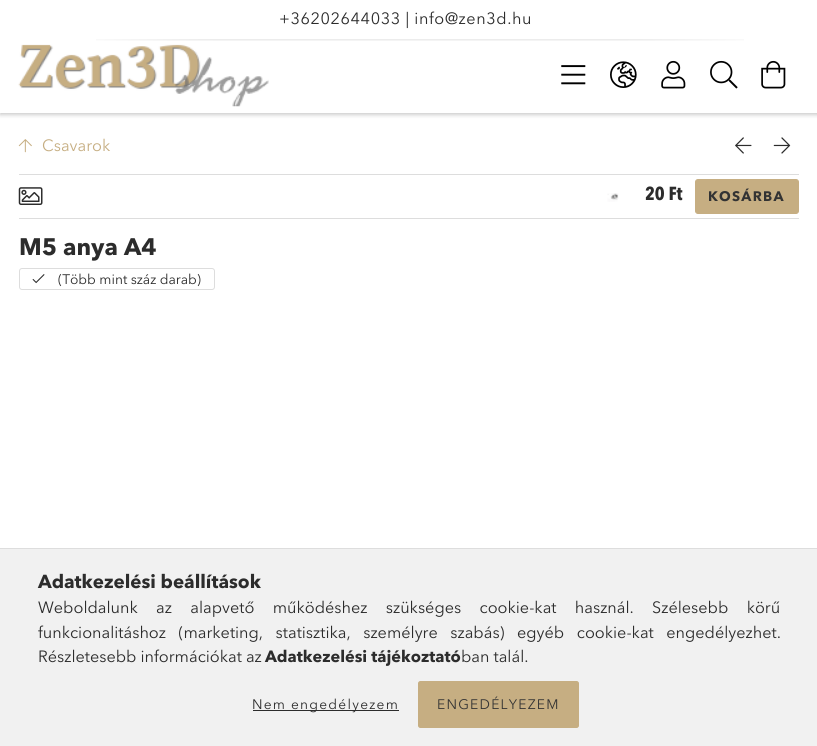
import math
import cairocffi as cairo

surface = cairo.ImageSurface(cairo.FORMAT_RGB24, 817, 746)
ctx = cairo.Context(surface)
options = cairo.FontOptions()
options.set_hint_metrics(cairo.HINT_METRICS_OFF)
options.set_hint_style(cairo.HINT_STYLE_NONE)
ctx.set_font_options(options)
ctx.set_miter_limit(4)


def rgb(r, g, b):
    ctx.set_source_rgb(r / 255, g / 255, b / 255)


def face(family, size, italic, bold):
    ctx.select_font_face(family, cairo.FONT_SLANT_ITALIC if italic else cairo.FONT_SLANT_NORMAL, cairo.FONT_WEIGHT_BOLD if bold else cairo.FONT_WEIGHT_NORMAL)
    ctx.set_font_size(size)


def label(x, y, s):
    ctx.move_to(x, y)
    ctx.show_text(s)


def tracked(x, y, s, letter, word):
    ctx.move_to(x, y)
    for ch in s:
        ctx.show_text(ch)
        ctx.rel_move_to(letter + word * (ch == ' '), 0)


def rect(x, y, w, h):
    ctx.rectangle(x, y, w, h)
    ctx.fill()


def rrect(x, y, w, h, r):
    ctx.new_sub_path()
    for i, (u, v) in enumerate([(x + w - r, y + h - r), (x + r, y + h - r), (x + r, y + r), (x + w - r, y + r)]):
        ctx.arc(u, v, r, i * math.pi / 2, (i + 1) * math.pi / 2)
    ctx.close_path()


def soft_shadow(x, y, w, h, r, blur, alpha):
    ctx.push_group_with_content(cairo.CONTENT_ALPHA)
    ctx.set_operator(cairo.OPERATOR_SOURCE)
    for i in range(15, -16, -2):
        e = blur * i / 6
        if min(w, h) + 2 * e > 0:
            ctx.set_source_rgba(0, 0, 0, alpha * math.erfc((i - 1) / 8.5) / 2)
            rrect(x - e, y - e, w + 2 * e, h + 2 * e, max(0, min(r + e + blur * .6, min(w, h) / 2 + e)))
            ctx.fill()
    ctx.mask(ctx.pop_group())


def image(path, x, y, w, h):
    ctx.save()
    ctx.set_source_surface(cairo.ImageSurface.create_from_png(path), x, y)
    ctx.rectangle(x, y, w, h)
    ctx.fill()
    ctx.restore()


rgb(255, 255, 255)
ctx.paint()
rgb(0, 0, 0)
soft_shadow(0, 3, 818, 112, 0, 2, 0.2)
rgb(255, 255, 255)
rect(0, 0, 817, 113)
face('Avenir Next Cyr', 16.25, 0, 0)
rgb(44, 44, 44)
tracked(279, 24, '+36202644033 | info@zen3d.hu', 0.6, 0)
image('image0.png', 96, 39, 648, 2)
image('image1.png', 18, 44, 251, 63)
image('image2.png', 561, 65, 25, 20)
image('image3.png', 610, 61, 27, 27)
image('image4.png', 661, 60, 25, 29)
image('image5.png', 710, 60, 28, 29)
image('image6.png', 761, 60, 25, 29)
image('image7.png', 18, 139, 14, 14)
rgb(198, 174, 130)
label(42, 151, 'Csavarok')
image('image8.png', 735, 137, 17, 17)
image('image9.png', 773, 137, 18, 17)
rgb(221, 221, 221)
rect(19, 174, 780, 1)
rect(19, 218, 780, 1)
image('image10.png', 18, 187, 25, 18)
image('image11.png', 607, 193, 12, 9)
face('Avenir Next', 18.75, 0, 1)
rgb(44, 44, 44)
label(645, 200, '20 Ft')
rgb(198, 174, 130)
rrect(695.5, 179.5, 103, 34, 2.5)
ctx.fill_preserve()
ctx.set_line_width(1)
ctx.stroke()
face('Avenir Next Cyr', 13.75, 0, 1)
rgb(51, 51, 51)
tracked(708, 201, 'KOSÁRBA', 1.25, 0)
face('Avenir Next Cyr', 23.75, 0, 1)
rgb(44, 44, 44)
label(19, 255, 'M5 anya A4')
rrect(19.5, 268.5, 195, 21, 2.5)
rgb(221, 221, 221)
ctx.stroke()
image('image12.png', 32, 274, 13, 10)
face('Avenir Next Cyr', 13.75, 0, 0)
rgb(44, 44, 44)
label(58, 284, '(Több mint száz darab)')
rgb(241, 241, 241)
rect(0, 549, 817, 197)
rgb(221, 221, 221)
rect(0, 548, 817, 1)
face('Avenir Next Cyr', 18.75, 0, 1)
rgb(44, 44, 44)
label(38, 588, 'Adatkezelési beállítások')
face('Avenir Next Cyr', 16.25, 0, 0)
tracked(38, 613, 'Weboldalunk az alapvető működéshez szükséges cookie-kat használ. Szélesebb körű', 0, 14.25)
tracked(38, 638, 'funkcionalitáshoz (marketing, statisztika, személyre szabás) egyéb cookie-kat engedélyezhet.', 0, 8.5)
label(38, 662, 'Részletesebb információkat az')
face('Avenir Next Cyr', 16.25, 0, 1)
label(265, 662, 'Adatkezelési tájékoztató')
face('Avenir Next Cyr', 16.25, 0, 0)
label(461, 662, 'ban talál.')
rect(253, 710, 146, 1)
face('Avenir Next Cyr', 13.75, 0, 0)
tracked(252, 709, 'Nem engedélyezem', 1.25, 0)
rgb(198, 174, 130)
rrect(418.5, 681.5, 160, 46, 2)
ctx.fill_preserve()
ctx.stroke()
rgb(51, 51, 51)
tracked(437, 709, 'ENGEDÉLYEZEM', 1.25, 0)
surface.write_to_png('render.png')
